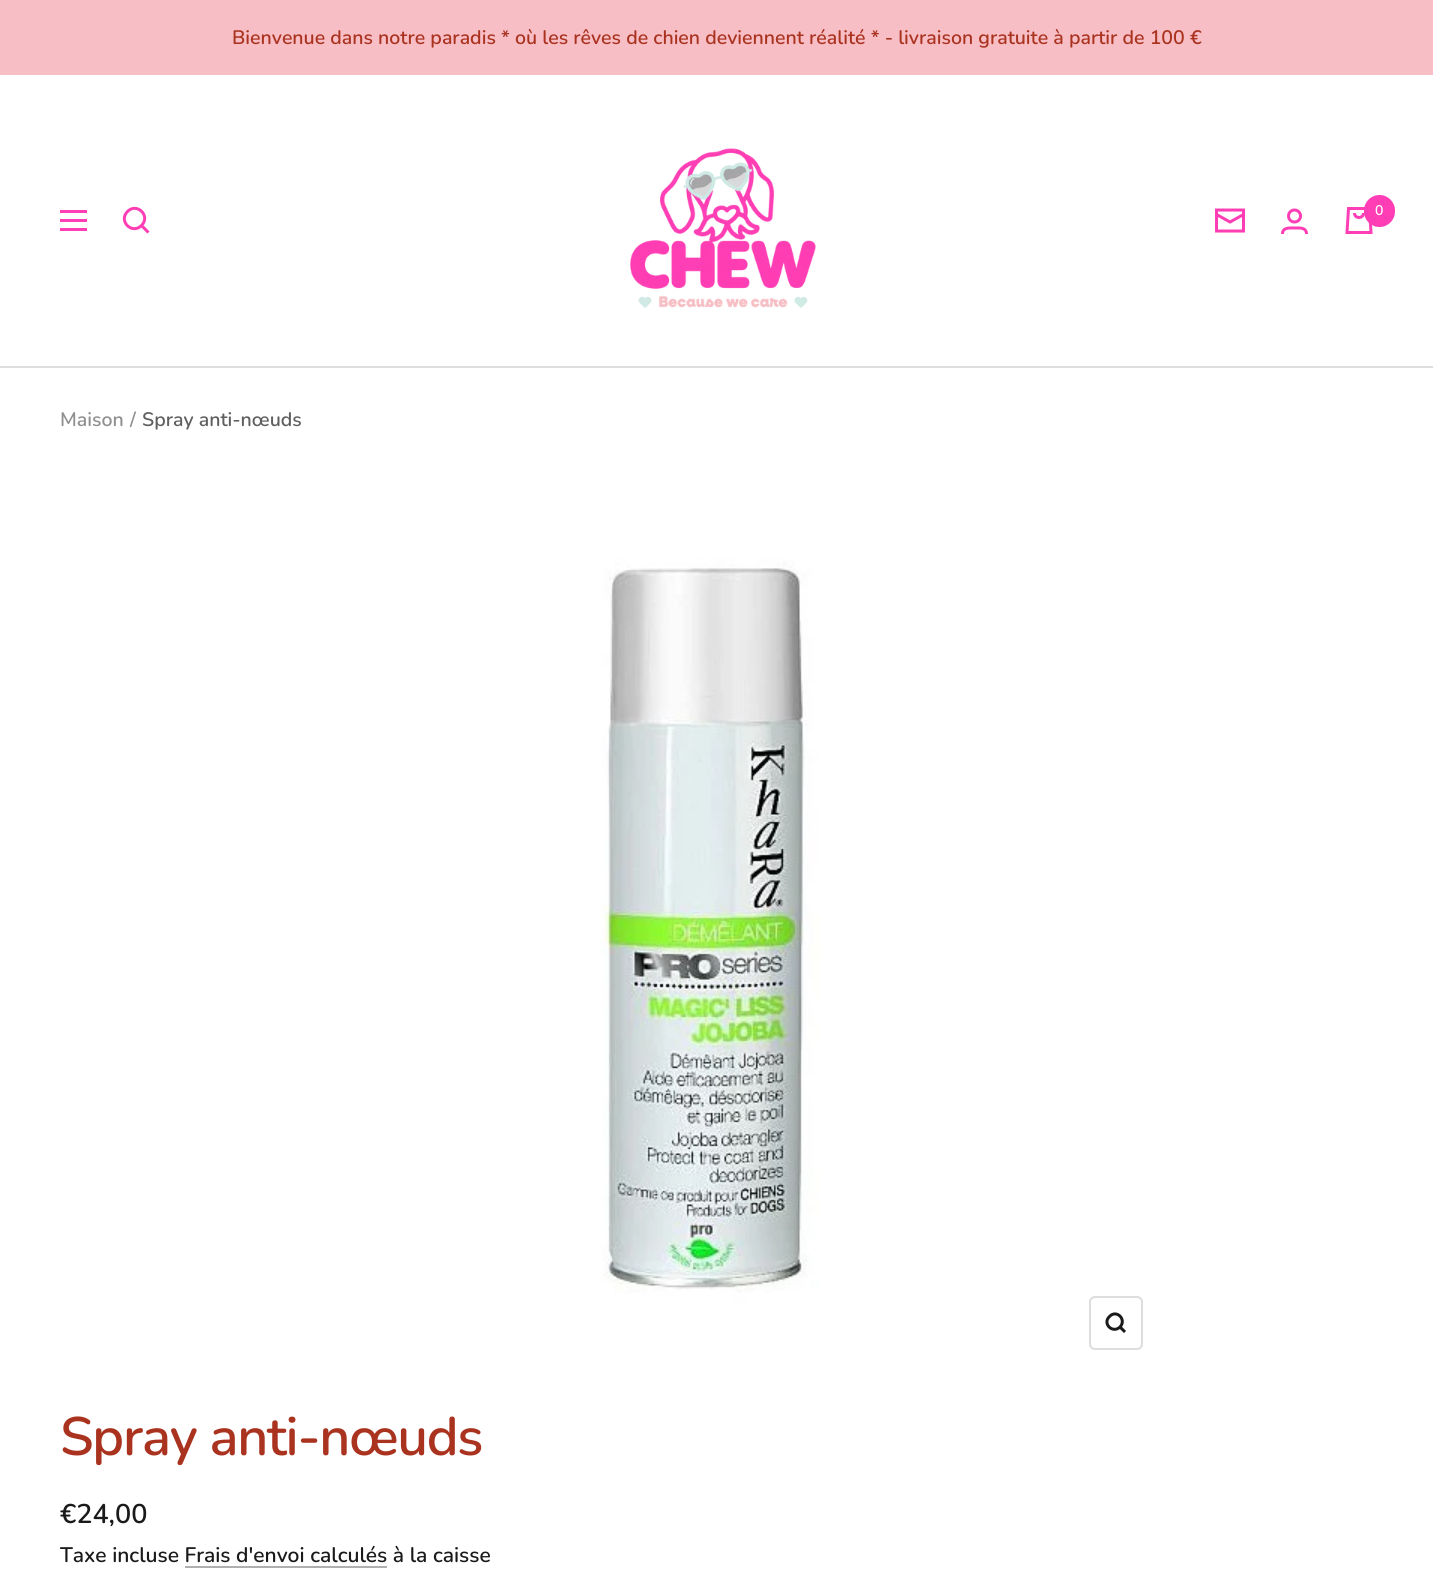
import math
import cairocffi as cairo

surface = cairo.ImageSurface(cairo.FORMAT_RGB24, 1433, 1581)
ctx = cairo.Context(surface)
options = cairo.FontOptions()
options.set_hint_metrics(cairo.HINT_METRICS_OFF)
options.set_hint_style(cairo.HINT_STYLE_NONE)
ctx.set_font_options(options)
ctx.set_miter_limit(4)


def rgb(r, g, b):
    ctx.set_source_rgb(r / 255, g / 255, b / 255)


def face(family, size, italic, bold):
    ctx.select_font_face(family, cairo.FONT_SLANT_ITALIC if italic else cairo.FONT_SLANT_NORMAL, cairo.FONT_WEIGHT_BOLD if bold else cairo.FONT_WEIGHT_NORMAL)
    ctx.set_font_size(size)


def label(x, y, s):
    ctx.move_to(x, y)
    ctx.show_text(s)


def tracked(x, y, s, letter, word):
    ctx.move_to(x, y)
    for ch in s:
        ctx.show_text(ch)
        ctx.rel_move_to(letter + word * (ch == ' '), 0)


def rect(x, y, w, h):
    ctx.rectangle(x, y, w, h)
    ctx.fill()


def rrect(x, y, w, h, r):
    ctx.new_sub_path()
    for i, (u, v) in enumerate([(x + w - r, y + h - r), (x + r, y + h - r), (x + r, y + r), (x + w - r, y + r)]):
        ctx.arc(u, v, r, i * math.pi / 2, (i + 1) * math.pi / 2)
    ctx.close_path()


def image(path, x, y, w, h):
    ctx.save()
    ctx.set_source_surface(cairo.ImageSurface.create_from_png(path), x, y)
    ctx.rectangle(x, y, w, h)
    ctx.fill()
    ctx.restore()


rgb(255, 255, 255)
ctx.paint()
rgb(248, 190, 197)
rect(0, 0, 1433, 75)
face('Nunito SemiBold', 19.5, 0, 0)
rgb(170, 51, 32)
label(232, 44, 'Bienvenue dans notre paradis * où les rêves de chien deviennent réalité * - livraison gratuite à partir de 100 €')
rgb(221, 221, 221)
rect(0, 366, 1433, 2)
ctx.new_path()
ctx.move_to(60, 211.5)
ctx.line_to(87, 211.5)
ctx.move_to(60, 229.5)
ctx.line_to(87, 229.5)
ctx.close_path()
ctx.move_to(60, 220.5)
ctx.line_to(87, 220.5)
ctx.close_path()
rgb(255, 62, 181)
ctx.set_line_width(3)
ctx.stroke()
ctx.new_path()
ctx.move_to(141.5, 225.5)
ctx.curve_to(151, 216, 137, 202, 127.5, 211.5)
ctx.curve_to(118, 221, 132, 235, 141.5, 225.5)
ctx.close_path()
ctx.move_to(141.5, 225.5)
ctx.line_to(148.5, 232.5)
ctx.stroke()
image('image0.png', 630, 148, 186, 160)
ctx.new_path()
ctx.move_to(1243.5, 214.5)
ctx.line_to(1230, 222)
ctx.line_to(1216.5, 214.5)
ctx.move_to(1216.5, 210)
ctx.line_to(1243.5, 210)
ctx.line_to(1243.5, 231)
ctx.line_to(1216.5, 231)
ctx.close_path()
ctx.stroke()
ctx.arc(1294.5, 216, 6, 0, 2 * math.pi)
ctx.stroke()
ctx.new_path()
ctx.move_to(1282.5, 234)
ctx.curve_to(1282.5, 227, 1290, 228, 1294.5, 228)
ctx.curve_to(1299, 228, 1306.5, 227, 1306.5, 234)
ctx.stroke()
ctx.new_path()
ctx.move_to(1348.5, 208.5)
ctx.line_to(1369.5, 208.5)
ctx.line_to(1371, 232.5)
ctx.line_to(1347, 232.5)
ctx.close_path()
ctx.move_to(1354.5, 213)
ctx.curve_to(1354.5, 219, 1363.5, 219, 1363.5, 213)
ctx.stroke()
rrect(1364, 195, 31, 32, 15.5)
ctx.fill()
face('Nunito SemiBold', 14, 0, 0)
rgb(255, 255, 255)
label(1375, 215, '0')
face('Nunito SemiBold', 19.5, 0, 0)
rgb(143, 143, 143)
label(60, 426, 'Maison')
label(130, 426, '/')
rgb(95, 95, 95)
label(142, 426, 'Spray anti-nœuds')
image('image1.png', 267, 474, 900, 900)
rrect(1090, 1297, 52, 52, 5)
rgb(221, 221, 221)
ctx.set_line_width(2)
ctx.stroke()
ctx.new_path()
ctx.move_to(1120, 1327)
ctx.curve_to(1127, 1319.5, 1116.5, 1309, 1109.5, 1316.5)
ctx.curve_to(1102, 1323.5, 1112.5, 1334, 1120, 1327)
ctx.close_path()
ctx.move_to(1120, 1327)
ctx.line_to(1125, 1332)
rgb(26, 26, 26)
ctx.set_line_width(3)
ctx.stroke()
face('Nunito SemiBold', 54, 0, 0)
rgb(170, 51, 32)
tracked(60, 1455, 'Spray anti-nœuds', -1.25, 0)
face('Nunito SemiBold', 27, 0, 0)
rgb(26, 26, 26)
label(60, 1523, '€24,00')
face('Nunito SemiBold', 21, 0, 0)
label(60, 1562, 'Taxe incluse Frais d\'envoi calculés à la caisse')
rgb(175, 175, 175)
rect(185, 1566, 202, 2)
surface.write_to_png('render.png')
